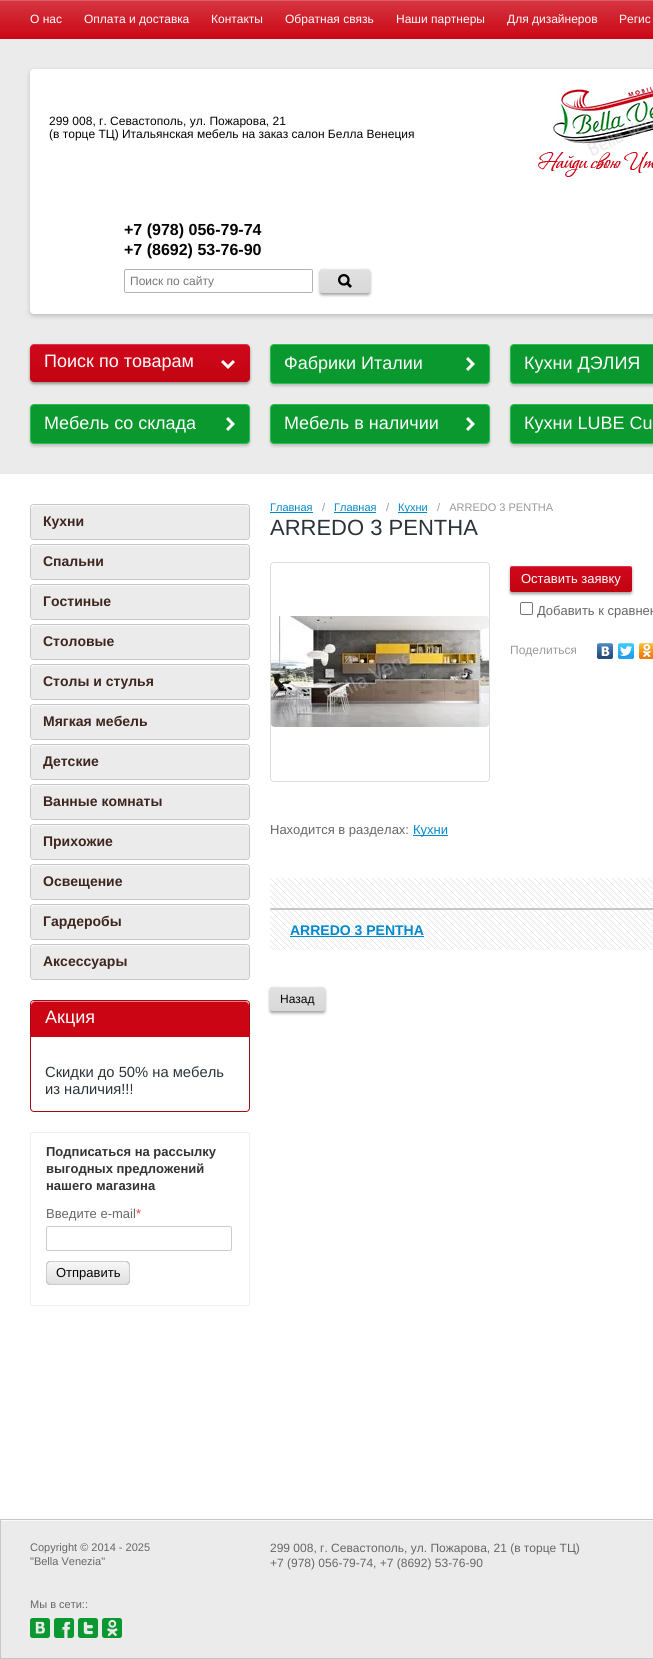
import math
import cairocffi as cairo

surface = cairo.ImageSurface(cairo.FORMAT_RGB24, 653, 1659)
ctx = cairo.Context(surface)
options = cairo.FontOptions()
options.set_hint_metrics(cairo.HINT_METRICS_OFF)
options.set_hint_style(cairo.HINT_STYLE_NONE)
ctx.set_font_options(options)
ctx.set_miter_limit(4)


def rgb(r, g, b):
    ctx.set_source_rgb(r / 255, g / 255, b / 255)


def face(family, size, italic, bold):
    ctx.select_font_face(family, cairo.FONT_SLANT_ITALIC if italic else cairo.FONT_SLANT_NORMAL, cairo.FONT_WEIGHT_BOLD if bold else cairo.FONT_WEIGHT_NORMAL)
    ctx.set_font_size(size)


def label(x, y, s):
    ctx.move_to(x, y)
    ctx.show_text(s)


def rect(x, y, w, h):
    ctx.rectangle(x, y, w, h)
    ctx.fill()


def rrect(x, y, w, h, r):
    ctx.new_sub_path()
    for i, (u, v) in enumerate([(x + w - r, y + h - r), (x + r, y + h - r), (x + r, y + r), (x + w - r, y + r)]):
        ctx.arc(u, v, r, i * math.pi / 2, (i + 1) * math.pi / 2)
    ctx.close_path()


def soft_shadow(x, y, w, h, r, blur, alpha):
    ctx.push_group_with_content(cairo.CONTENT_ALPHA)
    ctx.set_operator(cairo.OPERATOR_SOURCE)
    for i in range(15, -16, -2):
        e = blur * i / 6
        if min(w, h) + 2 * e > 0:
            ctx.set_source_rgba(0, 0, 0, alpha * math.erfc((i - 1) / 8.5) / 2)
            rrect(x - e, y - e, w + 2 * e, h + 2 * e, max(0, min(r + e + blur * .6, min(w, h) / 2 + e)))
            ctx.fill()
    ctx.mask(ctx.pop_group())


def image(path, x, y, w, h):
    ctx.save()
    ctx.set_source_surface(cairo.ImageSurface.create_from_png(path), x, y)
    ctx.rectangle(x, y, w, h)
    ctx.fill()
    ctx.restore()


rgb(255, 255, 255)
ctx.paint()
gradient = cairo.LinearGradient(500, 0, 500, 39)
gradient.add_color_stop_rgba(0, 0.835, 0.212, 0.259, 1)
gradient.add_color_stop_rgba(1, 0.796, 0.024, 0.082, 1)
ctx.set_source(gradient)
rect(0, 1, 653, 38)
rgb(221, 93, 103)
rect(0, 0, 653, 1)
face('Liberation Sans', 12, 0, 0)
rgb(255, 255, 255)
label(30, 23, 'О нас')
label(84, 23, 'Оплата и доставка')
label(211, 23, 'Контакты')
label(285, 23, 'Обратная связь')
label(396, 23, 'Наши партнеры')
label(507, 23, 'Для дизайнеров')
label(619, 23, 'Регис')
rgb(235, 235, 235)
rect(0, 39, 653, 435)
rgb(0, 0, 0)
soft_shadow(30, 71, 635, 245, 4, 2.5, 0.2)
rgb(255, 255, 255)
rrect(30, 69, 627, 245, 4)
ctx.fill()
rgb(4, 4, 4)
label(49, 125, '299 008, г. Севастополь, ул. Пожарова, 21')
label(49, 138, '(в торце ТЦ) Итальянская мебель на заказ салон Белла Венеция')
image('image0.png', 538, 83, 115, 94)
face('Liberation Sans', 16, 0, 1)
label(124, 235, '+7 (978) 056-79-74')
label(124, 255, '+7 (8692) 53-76-90')
rrect(124.5, 269.5, 188, 23, 1.5)
rgb(179, 179, 179)
ctx.set_line_width(1)
ctx.stroke()
face('Liberation Sans', 12, 0, 0)
rgb(117, 117, 117)
label(130, 285, 'Поиск по сайту')
rgb(0, 0, 0)
soft_shadow(320, 271, 50, 24, 2, 1.5, 0.38)
gradient = cairo.LinearGradient(345, 269, 345, 293)
gradient.add_color_stop_rgba(0, 0.882, 0.882, 0.882, 1)
gradient.add_color_stop_rgba(1, 0.847, 0.847, 0.847, 1)
ctx.set_source(gradient)
rrect(320, 269, 50, 24, 2)
ctx.fill()
rgb(231, 231, 231)
ctx.new_path()
ctx.move_to(322, 270)
ctx.line_to(368, 270)
ctx.curve_to(369, 270, 370, 271, 370, 272)
ctx.curve_to(370, 267, 364, 269, 360, 269)
ctx.line_to(330, 269)
ctx.curve_to(326, 269, 320, 267, 320, 272)
ctx.curve_to(320, 271, 321, 270, 322, 270)
ctx.close_path()
ctx.fill()
image('image1.png', 338, 274, 14, 14)
rgb(0, 0, 0)
soft_shadow(30, 346, 220, 38, 4, 1.5, 0.38)
gradient = cairo.LinearGradient(140, 344, 140, 382)
gradient.add_color_stop_rgba(0, 0.816, 0.031, 0.114, 1)
gradient.add_color_stop_rgba(1, 0.761, 0.016, 0.063, 1)
ctx.set_source(gradient)
rrect(30, 344, 220, 38, 4)
ctx.fill()
ctx.set_source_rgba(1, 1, 1, 0.21)
ctx.new_path()
ctx.move_to(34, 345)
ctx.line_to(246, 345)
ctx.curve_to(248, 345, 250, 347, 250, 349)
ctx.curve_to(250, 346, 249, 344, 246, 344)
ctx.line_to(32, 344)
ctx.curve_to(30, 345, 30, 347, 30, 349)
ctx.curve_to(30, 347, 32, 345, 34, 345)
ctx.close_path()
ctx.fill()
face('Liberation Sans', 18, 0, 0)
rgb(255, 255, 255)
label(44, 367, 'Поиск по товарам')
image('image2.png', 221, 360, 14, 9)
rgb(0, 0, 0)
soft_shadow(270, 346, 220, 40, 4, 1.5, 0.2)
rgb(9, 153, 47)
rrect(270.5, 344.5, 219, 39, 3.5)
ctx.fill_preserve()
rgb(43, 190, 82)
ctx.stroke()
rgb(255, 255, 255)
label(284, 369, 'Фабрики Италии')
image('image3.png', 466, 357, 9, 14)
rgb(0, 0, 0)
soft_shadow(510, 346, 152, 40, 4, 1.5, 0.2)
rgb(9, 153, 47)
rrect(510.5, 344.5, 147, 39, 3.5)
ctx.fill_preserve()
rgb(43, 190, 82)
ctx.stroke()
rgb(255, 255, 255)
label(524, 369, 'Кухни ДЭЛИЯ')
rgb(0, 0, 0)
soft_shadow(30, 406, 220, 40, 4, 1.5, 0.2)
rgb(9, 153, 47)
rrect(30.5, 404.5, 219, 39, 3.5)
ctx.fill_preserve()
rgb(43, 190, 82)
ctx.stroke()
rgb(255, 255, 255)
label(44, 429, 'Мебель со склада')
image('image3.png', 226, 417, 9, 14)
rgb(0, 0, 0)
soft_shadow(270, 406, 220, 40, 4, 1.5, 0.2)
rgb(9, 153, 47)
rrect(270.5, 404.5, 219, 39, 3.5)
ctx.fill_preserve()
rgb(43, 190, 82)
ctx.stroke()
rgb(255, 255, 255)
label(284, 429, 'Мебель в наличии')
image('image3.png', 466, 417, 9, 14)
rgb(0, 0, 0)
soft_shadow(510, 406, 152, 40, 4, 1.5, 0.2)
rgb(9, 153, 47)
rrect(510.5, 404.5, 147, 39, 3.5)
ctx.fill_preserve()
rgb(43, 190, 82)
ctx.stroke()
rgb(255, 255, 255)
label(524, 429, 'Кухни LUBE Cu')
rrect(30.5, 504.5, 219, 35, 3.5)
rgb(199, 199, 199)
ctx.stroke()
rgb(235, 235, 235)
rrect(31, 505, 218, 34, 4)
ctx.fill()
ctx.set_source_rgba(1, 1, 1, 0.7)
ctx.new_path()
ctx.move_to(35, 506)
ctx.line_to(245, 506)
ctx.curve_to(247, 506, 249, 508, 249, 510)
ctx.curve_to(249, 507, 248, 505, 245, 505)
ctx.line_to(33, 505)
ctx.curve_to(31, 506, 31, 508, 31, 510)
ctx.curve_to(31, 508, 33, 506, 35, 506)
ctx.close_path()
ctx.fill()
face('Liberation Sans', 14, 0, 1)
rgb(62, 37, 30)
label(43, 526, 'Кухни')
rrect(30.5, 544.5, 219, 35, 3.5)
rgb(199, 199, 199)
ctx.stroke()
rgb(235, 235, 235)
rrect(31, 545, 218, 34, 4)
ctx.fill()
ctx.set_source_rgba(1, 1, 1, 0.7)
ctx.new_path()
ctx.move_to(35, 546)
ctx.line_to(245, 546)
ctx.curve_to(247, 546, 249, 548, 249, 550)
ctx.curve_to(249, 547, 248, 545, 245, 545)
ctx.line_to(33, 545)
ctx.curve_to(31, 546, 31, 548, 31, 550)
ctx.curve_to(31, 548, 33, 546, 35, 546)
ctx.close_path()
ctx.fill()
rgb(62, 37, 30)
label(43, 566, 'Спальни')
rrect(30.5, 584.5, 219, 35, 3.5)
rgb(199, 199, 199)
ctx.stroke()
rgb(235, 235, 235)
rrect(31, 585, 218, 34, 4)
ctx.fill()
ctx.set_source_rgba(1, 1, 1, 0.7)
ctx.new_path()
ctx.move_to(35, 586)
ctx.line_to(245, 586)
ctx.curve_to(247, 586, 249, 588, 249, 590)
ctx.curve_to(249, 587, 248, 585, 245, 585)
ctx.line_to(33, 585)
ctx.curve_to(31, 586, 31, 588, 31, 590)
ctx.curve_to(31, 588, 33, 586, 35, 586)
ctx.close_path()
ctx.fill()
rgb(62, 37, 30)
label(43, 606, 'Гостиные')
rrect(30.5, 624.5, 219, 35, 3.5)
rgb(199, 199, 199)
ctx.stroke()
rgb(235, 235, 235)
rrect(31, 625, 218, 34, 4)
ctx.fill()
ctx.set_source_rgba(1, 1, 1, 0.7)
ctx.new_path()
ctx.move_to(35, 626)
ctx.line_to(245, 626)
ctx.curve_to(247, 626, 249, 628, 249, 630)
ctx.curve_to(249, 627, 248, 625, 245, 625)
ctx.line_to(33, 625)
ctx.curve_to(31, 626, 31, 628, 31, 630)
ctx.curve_to(31, 628, 33, 626, 35, 626)
ctx.close_path()
ctx.fill()
rgb(62, 37, 30)
label(43, 646, 'Столовые')
rrect(30.5, 664.5, 219, 35, 3.5)
rgb(199, 199, 199)
ctx.stroke()
rgb(235, 235, 235)
rrect(31, 665, 218, 34, 4)
ctx.fill()
ctx.set_source_rgba(1, 1, 1, 0.7)
ctx.new_path()
ctx.move_to(35, 666)
ctx.line_to(245, 666)
ctx.curve_to(247, 666, 249, 668, 249, 670)
ctx.curve_to(249, 667, 248, 665, 245, 665)
ctx.line_to(33, 665)
ctx.curve_to(31, 666, 31, 668, 31, 670)
ctx.curve_to(31, 668, 33, 666, 35, 666)
ctx.close_path()
ctx.fill()
rgb(62, 37, 30)
label(43, 686, 'Столы и стулья')
rrect(30.5, 704.5, 219, 35, 3.5)
rgb(199, 199, 199)
ctx.stroke()
rgb(235, 235, 235)
rrect(31, 705, 218, 34, 4)
ctx.fill()
ctx.set_source_rgba(1, 1, 1, 0.7)
ctx.new_path()
ctx.move_to(35, 706)
ctx.line_to(245, 706)
ctx.curve_to(247, 706, 249, 708, 249, 710)
ctx.curve_to(249, 707, 248, 705, 245, 705)
ctx.line_to(33, 705)
ctx.curve_to(31, 706, 31, 708, 31, 710)
ctx.curve_to(31, 708, 33, 706, 35, 706)
ctx.close_path()
ctx.fill()
rgb(62, 37, 30)
label(43, 726, 'Мягкая мебель')
rrect(30.5, 744.5, 219, 35, 3.5)
rgb(199, 199, 199)
ctx.stroke()
rgb(235, 235, 235)
rrect(31, 745, 218, 34, 4)
ctx.fill()
ctx.set_source_rgba(1, 1, 1, 0.7)
ctx.new_path()
ctx.move_to(35, 746)
ctx.line_to(245, 746)
ctx.curve_to(247, 746, 249, 748, 249, 750)
ctx.curve_to(249, 747, 248, 745, 245, 745)
ctx.line_to(33, 745)
ctx.curve_to(31, 746, 31, 748, 31, 750)
ctx.curve_to(31, 748, 33, 746, 35, 746)
ctx.close_path()
ctx.fill()
rgb(62, 37, 30)
label(43, 766, 'Детские')
rrect(30.5, 784.5, 219, 35, 3.5)
rgb(199, 199, 199)
ctx.stroke()
rgb(235, 235, 235)
rrect(31, 785, 218, 34, 4)
ctx.fill()
ctx.set_source_rgba(1, 1, 1, 0.7)
ctx.new_path()
ctx.move_to(35, 786)
ctx.line_to(245, 786)
ctx.curve_to(247, 786, 249, 788, 249, 790)
ctx.curve_to(249, 787, 248, 785, 245, 785)
ctx.line_to(33, 785)
ctx.curve_to(31, 786, 31, 788, 31, 790)
ctx.curve_to(31, 788, 33, 786, 35, 786)
ctx.close_path()
ctx.fill()
rgb(62, 37, 30)
label(43, 806, 'Ванные комнаты')
rrect(30.5, 824.5, 219, 35, 3.5)
rgb(199, 199, 199)
ctx.stroke()
rgb(235, 235, 235)
rrect(31, 825, 218, 34, 4)
ctx.fill()
ctx.set_source_rgba(1, 1, 1, 0.7)
ctx.new_path()
ctx.move_to(35, 826)
ctx.line_to(245, 826)
ctx.curve_to(247, 826, 249, 828, 249, 830)
ctx.curve_to(249, 827, 248, 825, 245, 825)
ctx.line_to(33, 825)
ctx.curve_to(31, 826, 31, 828, 31, 830)
ctx.curve_to(31, 828, 33, 826, 35, 826)
ctx.close_path()
ctx.fill()
rgb(62, 37, 30)
label(43, 846, 'Прихожие')
rrect(30.5, 864.5, 219, 35, 3.5)
rgb(199, 199, 199)
ctx.stroke()
rgb(235, 235, 235)
rrect(31, 865, 218, 34, 4)
ctx.fill()
ctx.set_source_rgba(1, 1, 1, 0.7)
ctx.new_path()
ctx.move_to(35, 866)
ctx.line_to(245, 866)
ctx.curve_to(247, 866, 249, 868, 249, 870)
ctx.curve_to(249, 867, 248, 865, 245, 865)
ctx.line_to(33, 865)
ctx.curve_to(31, 866, 31, 868, 31, 870)
ctx.curve_to(31, 868, 33, 866, 35, 866)
ctx.close_path()
ctx.fill()
rgb(62, 37, 30)
label(43, 886, 'Освещение')
rrect(30.5, 904.5, 219, 35, 3.5)
rgb(199, 199, 199)
ctx.stroke()
rgb(235, 235, 235)
rrect(31, 905, 218, 34, 4)
ctx.fill()
ctx.set_source_rgba(1, 1, 1, 0.7)
ctx.new_path()
ctx.move_to(35, 906)
ctx.line_to(245, 906)
ctx.curve_to(247, 906, 249, 908, 249, 910)
ctx.curve_to(249, 907, 248, 905, 245, 905)
ctx.line_to(33, 905)
ctx.curve_to(31, 906, 31, 908, 31, 910)
ctx.curve_to(31, 908, 33, 906, 35, 906)
ctx.close_path()
ctx.fill()
rgb(62, 37, 30)
label(43, 926, 'Гардеробы')
rrect(30.5, 944.5, 219, 35, 3.5)
rgb(199, 199, 199)
ctx.stroke()
rgb(235, 235, 235)
rrect(31, 945, 218, 34, 4)
ctx.fill()
ctx.set_source_rgba(1, 1, 1, 0.7)
ctx.new_path()
ctx.move_to(35, 946)
ctx.line_to(245, 946)
ctx.curve_to(247, 946, 249, 948, 249, 950)
ctx.curve_to(249, 947, 248, 945, 245, 945)
ctx.line_to(33, 945)
ctx.curve_to(31, 946, 31, 948, 31, 950)
ctx.curve_to(31, 948, 33, 946, 35, 946)
ctx.close_path()
ctx.fill()
rgb(62, 37, 30)
label(43, 966, 'Аксессуары')
rrect(30.5, 1000.5, 219, 111, 3.5)
rgb(171, 8, 20)
ctx.stroke()
rgb(203, 5, 19)
ctx.new_path()
ctx.move_to(35, 1001)
ctx.line_to(245, 1001)
ctx.curve_to(247, 1001, 249, 1003, 249, 1005)
ctx.line_to(249, 1037)
ctx.line_to(31, 1037)
ctx.line_to(31, 1005)
ctx.curve_to(31, 1003, 33, 1001, 35, 1001)
ctx.close_path()
ctx.fill()
ctx.set_source_rgba(1, 1, 1, 0.5)
ctx.new_path()
ctx.move_to(35, 1002)
ctx.line_to(245, 1002)
ctx.curve_to(247, 1002, 249, 1004, 249, 1006)
ctx.curve_to(249, 1003, 248, 1001, 245, 1001)
ctx.line_to(33, 1001)
ctx.curve_to(31, 1002, 31, 1004, 31, 1006)
ctx.curve_to(31, 1004, 33, 1002, 35, 1002)
ctx.close_path()
ctx.fill()
face('Liberation Sans', 18, 0, 0)
rgb(255, 255, 255)
label(45, 1023, 'Акция')
face('Liberation Sans', 14.75, 0, 0)
rgb(43, 51, 58)
label(45, 1077, 'Скидки до 50% на мебель')
label(45, 1094, 'из наличия!!!')
rrect(30.5, 1132.5, 219, 173, 1.5)
rgb(238, 238, 238)
ctx.stroke()
face('Liberation Sans', 13, 0, 1)
rgb(51, 51, 51)
label(46, 1156, 'Подписаться на рассылку')
label(46, 1173, 'выгодных предложений')
label(46, 1190, 'нашего магазина')
face('Liberation Sans', 13, 0, 0)
rgb(102, 102, 102)
label(46, 1218, 'Введите e-mail')
rgb(235, 60, 60)
label(136, 1218, '*')
rrect(46.5, 1226.5, 185, 24, 1.5)
rgb(204, 204, 204)
ctx.stroke()
gradient = cairo.LinearGradient(88, 1261, 88, 1285)
gradient.add_color_stop_rgba(0, 0.973, 0.973, 0.973, 1)
gradient.add_color_stop_rgba(1, 0.875, 0.875, 0.875, 1)
ctx.set_source(gradient)
rrect(46, 1261, 84, 24, 4)
ctx.fill()
rgb(204, 204, 204)
ctx.new_path()
ctx.move_to(48, 1262)
ctx.curve_to(47, 1262, 46, 1264, 46, 1265)
ctx.line_to(46, 1281)
ctx.curve_to(46, 1283, 48, 1285, 50, 1285)
ctx.line_to(126, 1285)
ctx.curve_to(127, 1285, 129, 1284, 129, 1283)
ctx.line_to(127, 1284)
ctx.line_to(51, 1284)
ctx.curve_to(49, 1284, 47, 1282, 47, 1280)
ctx.line_to(47, 1264)
ctx.close_path()
ctx.fill()
ctx.new_path()
ctx.move_to(49, 1262)
ctx.line_to(125, 1262)
ctx.curve_to(127, 1262, 129, 1264, 129, 1266)
ctx.line_to(129, 1282)
ctx.line_to(128, 1284)
ctx.curve_to(129, 1284, 130, 1282, 130, 1281)
ctx.line_to(130, 1265)
ctx.curve_to(130, 1263, 128, 1261, 126, 1261)
ctx.line_to(50, 1261)
ctx.curve_to(49, 1261, 47, 1262, 47, 1263)
ctx.close_path()
ctx.fill()
ctx.new_path()
ctx.move_to(47, 1283)
ctx.curve_to(47, 1284, 49, 1285, 50, 1285)
ctx.line_to(126, 1285)
ctx.curve_to(128, 1285, 130, 1283, 130, 1281)
ctx.line_to(130, 1265)
ctx.curve_to(130, 1264, 129, 1262, 128, 1262)
ctx.line_to(129, 1264)
ctx.line_to(129, 1280)
ctx.curve_to(129, 1282, 127, 1284, 125, 1284)
ctx.line_to(49, 1284)
ctx.close_path()
ctx.fill()
ctx.new_path()
ctx.move_to(51, 1262)
ctx.line_to(127, 1262)
ctx.line_to(129, 1263)
ctx.curve_to(129, 1262, 127, 1261, 126, 1261)
ctx.line_to(50, 1261)
ctx.curve_to(48, 1261, 46, 1263, 46, 1265)
ctx.line_to(46, 1281)
ctx.curve_to(46, 1282, 47, 1284, 48, 1284)
ctx.curve_to(46, 1282, 47, 1277, 47, 1274)
ctx.curve_to(47, 1271, 45, 1262, 51, 1262)
ctx.close_path()
ctx.fill()
rgb(4, 4, 4)
label(56, 1277, 'Отправить')
face('Liberation Sans', 11, 0, 0)
rgb(0, 136, 204)
label(270, 511, 'Главная')
rect(270, 512, 43, 1)
rgb(153, 153, 153)
label(322, 511, '/')
rgb(0, 136, 204)
label(334, 511, 'Главная')
rect(334, 512, 42, 1)
rgb(153, 153, 153)
label(386, 511, '/')
rgb(0, 136, 204)
rect(398, 512, 29, 1)
label(398, 511, 'Кухни')
rgb(153, 153, 153)
label(437, 511, '/   ARREDO 3 PENTHA')
face('Liberation Sans', 22, 0, 0)
rgb(43, 51, 58)
label(270, 535, 'ARREDO 3 PENTHA')
rrect(270.5, 562.5, 219, 219, 3.5)
rgb(222, 222, 222)
ctx.stroke()
image('image4.png', 271, 616, 218, 111)
rgb(0, 0, 0)
soft_shadow(510, 568, 122, 26, 2, 1.5, 0.38)
gradient = cairo.LinearGradient(571, 566, 571, 592)
gradient.add_color_stop_rgba(0, 0.816, 0.031, 0.114, 1)
gradient.add_color_stop_rgba(1, 0.761, 0.016, 0.063, 1)
ctx.set_source(gradient)
rrect(510, 566, 122, 26, 2)
ctx.fill()
ctx.set_source_rgba(1, 1, 1, 0.21)
ctx.new_path()
ctx.move_to(512, 567)
ctx.line_to(630, 567)
ctx.line_to(632, 568)
ctx.line_to(632, 569)
ctx.curve_to(632, 562, 616, 566, 610, 566)
ctx.line_to(511, 566)
ctx.curve_to(510, 567, 510, 568, 510, 569)
ctx.curve_to(510, 568, 511, 567, 512, 567)
ctx.close_path()
ctx.fill()
face('Liberation Sans', 13, 0, 0)
rgb(255, 255, 255)
label(521, 583, 'Оставить заявку')
rrect(520.5, 602.5, 12, 12, 1.5)
rgb(118, 118, 118)
ctx.stroke()
rgb(102, 102, 102)
label(537, 615, 'Добавить к сравнен')
face('Liberation Sans', 12, 0, 0)
rgb(153, 153, 153)
label(510, 654, 'Поделиться')
image('image5.png', 597, 643, 16, 16)
image('image6.png', 618, 643, 16, 16)
image('image7.png', 639, 643, 14, 16)
face('Liberation Sans', 13, 0, 0)
rgb(102, 102, 102)
label(270, 834, 'Находится в разделах:')
rgb(0, 136, 204)
rect(413, 835, 35, 1)
label(413, 834, 'Кухни')
image('image8.png', 270, 878, 383, 30)
rgb(199, 199, 199)
rrect(270, 908, 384, 2, 1)
ctx.fill()
image('image9.png', 270, 910, 383, 40)
face('Liberation Sans', 14, 0, 1)
rgb(0, 136, 204)
label(290, 935, 'ARREDO 3 PENTHA')
rect(290, 936, 134, 1)
rgb(0, 0, 0)
soft_shadow(270, 989, 55, 24, 2, 1.5, 0.38)
gradient = cairo.LinearGradient(298, 987, 298, 1011)
gradient.add_color_stop_rgba(0, 0.882, 0.882, 0.882, 1)
gradient.add_color_stop_rgba(1, 0.847, 0.847, 0.847, 1)
ctx.set_source(gradient)
rrect(270, 987, 55, 24, 2)
ctx.fill()
rgb(231, 231, 231)
ctx.new_path()
ctx.move_to(272, 988)
ctx.line_to(323, 988)
ctx.curve_to(324, 988, 325, 989, 325, 990)
ctx.curve_to(325, 985, 318, 987, 314, 987)
ctx.line_to(280, 987)
ctx.curve_to(277, 987, 270, 985, 270, 990)
ctx.curve_to(270, 989, 271, 988, 272, 988)
ctx.close_path()
ctx.fill()
face('Liberation Sans', 12, 0, 0)
rgb(4, 4, 4)
label(280, 1003, 'Назад')
rgb(235, 235, 235)
rect(1, 1521, 652, 137)
rgb(249, 249, 249)
rect(1, 1520, 652, 1)
ctx.rectangle(0.5, 1519.5, 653, 139)
rgb(199, 199, 199)
ctx.stroke()
face('Liberation Sans', 11, 0, 0)
rgb(102, 102, 102)
label(30, 1551, 'Copyright © 2014 - 2025')
label(30, 1565, '"Bella Venezia"')
label(30, 1608, 'Мы в сети::')
image('image10.png', 30, 1618, 20, 20)
image('image11.png', 54, 1618, 20, 20)
image('image12.png', 78, 1618, 20, 20)
image('image13.png', 102, 1618, 20, 20)
face('Liberation Sans', 12, 0, 0)
label(270, 1552, '299 008, г. Севастополь, ул. Пожарова, 21 (в торце ТЦ)')
label(270, 1567, '+7 (978) 056-79-74, +7 (8692) 53-76-90')
surface.write_to_png('render.png')
